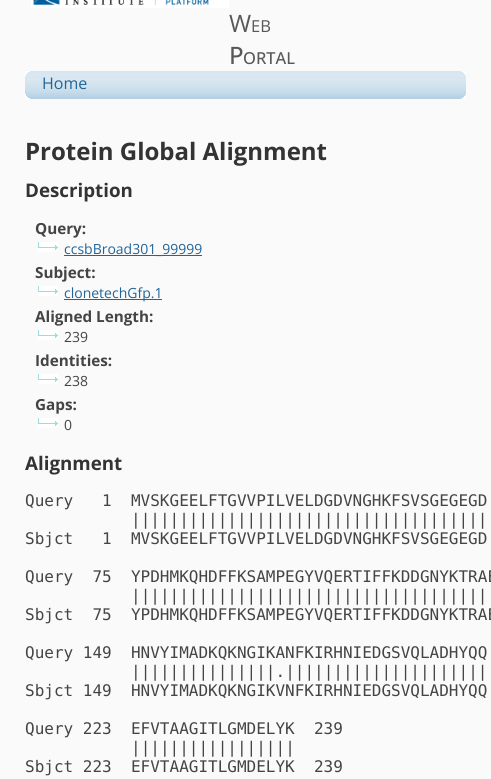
import math
import cairocffi as cairo

surface = cairo.ImageSurface(cairo.FORMAT_RGB24, 491, 779)
ctx = cairo.Context(surface)
options = cairo.FontOptions()
options.set_hint_metrics(cairo.HINT_METRICS_OFF)
options.set_hint_style(cairo.HINT_STYLE_NONE)
ctx.set_font_options(options)
ctx.set_miter_limit(4)


def rgb(r, g, b):
    ctx.set_source_rgb(r / 255, g / 255, b / 255)


def face(family, size, italic, bold):
    ctx.select_font_face(family, cairo.FONT_SLANT_ITALIC if italic else cairo.FONT_SLANT_NORMAL, cairo.FONT_WEIGHT_BOLD if bold else cairo.FONT_WEIGHT_NORMAL)
    ctx.set_font_size(size)


def label(x, y, s):
    ctx.move_to(x, y)
    ctx.show_text(s)


def rect(x, y, w, h):
    ctx.rectangle(x, y, w, h)
    ctx.fill()


def image(path, x, y, w, h):
    ctx.save()
    ctx.set_source_surface(cairo.ImageSurface.create_from_png(path), x, y)
    ctx.rectangle(x, y, w, h)
    ctx.fill()
    ctx.restore()


rgb(250, 250, 250)
ctx.paint()
image('image0.png', 31, 0, 198, 8)
face('Open Sans', 24, 0, 0)
rgb(88, 88, 88)
label(229, 32, 'W')
face('Open Sans', 16.5, 0, 0)
label(251, 32, 'EB')
face('Open Sans Medium', 24, 0, 0)
label(229, 64, 'P')
face('Open Sans Medium', 16.5, 0, 0)
label(243, 64, 'ORTAL')
image('image1.png', 25, 71, 46, 28)
image('image2.png', 420, 71, 46, 28)
image('image3.png', 71, 71, 349, 28)
face('Open Sans', 16, 0, 0)
rgb(34, 100, 152)
label(42, 89, 'Home')
face('Open Sans', 24, 0, 1)
rgb(51, 51, 51)
label(25, 160, 'Protein Global Alignment')
face('Open Sans', 18.75, 0, 1)
label(25, 197, 'Description')
face('Open Sans', 15.25, 0, 1)
rgb(68, 68, 68)
label(35, 234, 'Query:')
image('image4.png', 38, 242, 20, 10)
rgb(34, 100, 152)
rect(64, 255, 138, 1)
face('Open Sans', 14, 0, 0)
label(64, 254, 'ccsbBroad301_99999')
face('Open Sans', 15.25, 0, 1)
rgb(68, 68, 68)
label(35, 278, 'Subject:')
image('image4.png', 38, 286, 20, 10)
rgb(34, 100, 152)
rect(64, 299, 98, 1)
face('Open Sans', 14, 0, 0)
label(64, 298, 'clonetechGfp.1')
face('Open Sans', 15.25, 0, 1)
rgb(68, 68, 68)
label(35, 322, 'Aligned Length:')
image('image4.png', 38, 330, 20, 10)
face('Open Sans', 14, 0, 0)
label(64, 342, '239')
face('Open Sans', 15.25, 0, 1)
label(35, 366, 'Identities:')
image('image4.png', 38, 374, 20, 10)
face('Open Sans', 14, 0, 0)
label(64, 386, '238')
face('Open Sans', 15.25, 0, 1)
label(35, 410, 'Gaps:')
image('image4.png', 38, 418, 20, 10)
face('Open Sans', 14, 0, 0)
label(64, 430, '0')
face('Open Sans', 18.75, 0, 1)
rgb(51, 51, 51)
label(25, 470, 'Alignment')
face('DejaVu Sans Mono', 16, 0, 0)
rgb(68, 68, 68)
label(25, 506, 'Query   1  MVSKGEELFTGVVPILVELDGDVNGHKFSVSGEGEGD')
label(131, 525, '|||||||||||||||||||||||||||||||||||||')
label(25, 544, 'Sbjct   1  MVSKGEELFTGVVPILVELDGDVNGHKFSVSGEGEGD')
label(25, 582, 'Query  75  YPDHMKQHDFFKSAMPEGYVQERTIFFKDDGNYKTRAE')
label(131, 601, '|||||||||||||||||||||||||||||||||||||')
label(25, 620, 'Sbjct  75  YPDHMKQHDFFKSAMPEGYVQERTIFFKDDGNYKTRAE')
label(25, 658, 'Query 149  HNVYIMADKQKNGIKANFKIRHNIEDGSVQLADHYQQ')
label(131, 677, '|||||||||||||||.|||||||||||||||||||||')
label(25, 696, 'Sbjct 149  HNVYIMADKQKNGIKVNFKIRHNIEDGSVQLADHYQQ')
label(25, 734, 'Query 223  EFVTAAGITLGMDELYK  239')
label(131, 753, '|||||||||||||||||')
label(25, 772, 'Sbjct 223  EFVTAAGITLGMDELYK  239')
surface.write_to_png('render.png')
